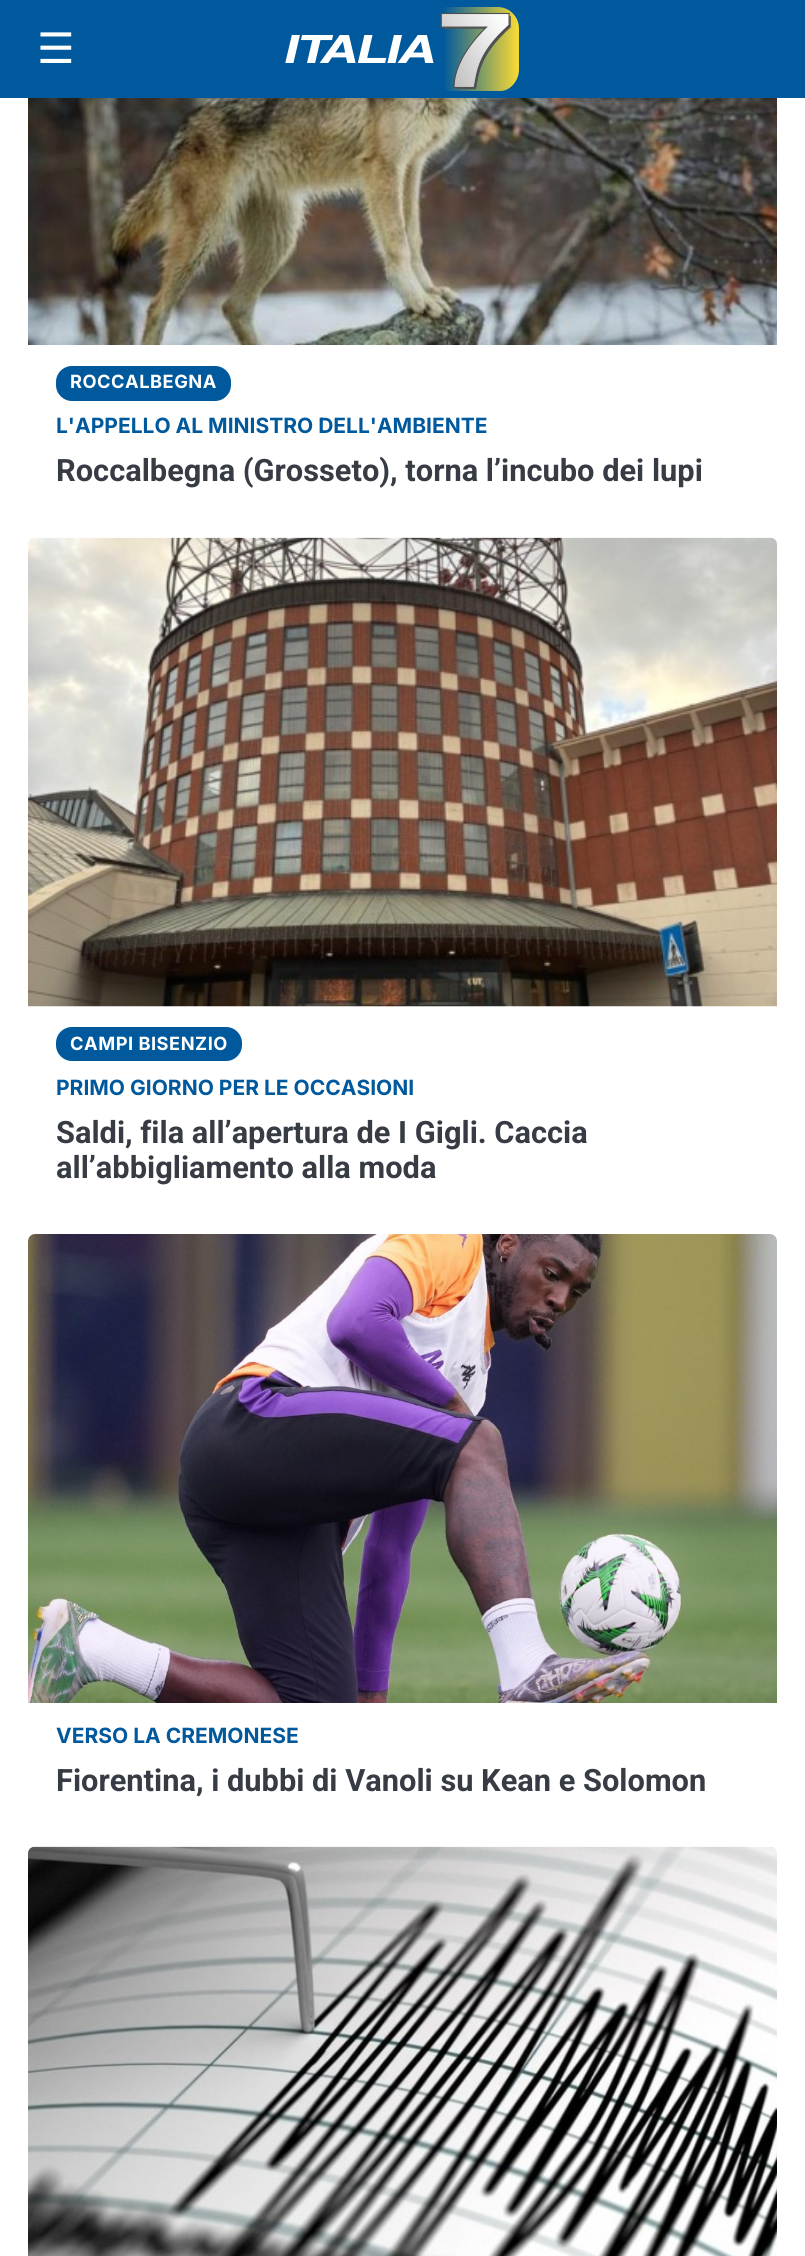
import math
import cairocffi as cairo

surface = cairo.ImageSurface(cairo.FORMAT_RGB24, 805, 2256)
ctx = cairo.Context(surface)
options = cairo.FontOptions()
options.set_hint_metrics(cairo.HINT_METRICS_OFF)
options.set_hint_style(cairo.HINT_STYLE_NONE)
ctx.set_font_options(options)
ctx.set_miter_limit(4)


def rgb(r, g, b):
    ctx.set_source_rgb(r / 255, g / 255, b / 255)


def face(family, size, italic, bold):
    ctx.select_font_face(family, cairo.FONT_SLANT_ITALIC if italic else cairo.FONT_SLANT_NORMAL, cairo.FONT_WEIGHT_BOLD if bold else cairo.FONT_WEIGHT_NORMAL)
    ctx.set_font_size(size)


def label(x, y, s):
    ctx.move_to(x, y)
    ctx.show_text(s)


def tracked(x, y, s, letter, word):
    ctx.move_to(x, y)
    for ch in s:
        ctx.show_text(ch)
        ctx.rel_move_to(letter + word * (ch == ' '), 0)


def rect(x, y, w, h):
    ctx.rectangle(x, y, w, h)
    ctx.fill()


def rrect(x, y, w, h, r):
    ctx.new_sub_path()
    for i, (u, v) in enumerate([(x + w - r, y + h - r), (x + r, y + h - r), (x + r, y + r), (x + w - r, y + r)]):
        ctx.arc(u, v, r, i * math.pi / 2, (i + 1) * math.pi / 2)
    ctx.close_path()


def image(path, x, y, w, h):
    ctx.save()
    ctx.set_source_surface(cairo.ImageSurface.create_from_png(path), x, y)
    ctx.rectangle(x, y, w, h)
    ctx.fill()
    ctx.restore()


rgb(255, 255, 255)
ctx.paint()
rgb(0, 89, 156)
rect(0, 0, 805, 98)
face('DejaVu Sans', 42, 0, 0)
rgb(255, 255, 255)
label(37, 63, '☰')
image('image0.png', 285, 7, 234, 84)
image('image1.png', 28, 98, 749, 247)
rgb(0, 89, 156)
rrect(56, 366, 175, 35, 16)
ctx.fill()
face('Inter', 18.25, 0, 1)
rgb(255, 255, 255)
tracked(70, 388, 'ROCCALBEGNA', 0.5, 0)
face('Inter', 21, 0, 1)
rgb(0, 89, 156)
label(56, 433, 'L\'APPELLO AL MINISTRO DELL\'AMBIENTE')
face('Roboto', 30.8, 0, 1)
rgb(55, 60, 68)
label(56, 481, 'Roccalbegna (Grosseto), torna l’incubo dei lupi')
image('image2.png', 28, 537, 749, 470)
rgb(0, 89, 156)
rrect(56, 1027, 186, 34, 16)
ctx.fill()
face('Inter', 18.25, 0, 1)
rgb(255, 255, 255)
tracked(70, 1050, 'CAMPI BISENZIO', 0.5, 0)
face('Inter', 21, 0, 1)
rgb(0, 89, 156)
label(56, 1095, 'PRIMO GIORNO PER LE OCCASIONI')
face('Roboto', 30.8, 0, 1)
rgb(55, 60, 68)
label(56, 1143, 'Saldi, fila all’apertura de I Gigli. Caccia')
label(56, 1178, 'all’abbigliamento alla moda')
image('image3.png', 28, 1234, 749, 469)
face('Inter', 21, 0, 1)
rgb(0, 89, 156)
label(56, 1743, 'VERSO LA CREMONESE')
face('Roboto', 30.8, 0, 1)
rgb(55, 60, 68)
label(56, 1791, 'Fiorentina, i dubbi di Vanoli su Kean e Solomon')
image('image4.png', 28, 1846, 749, 410)
surface.write_to_png('render.png')
